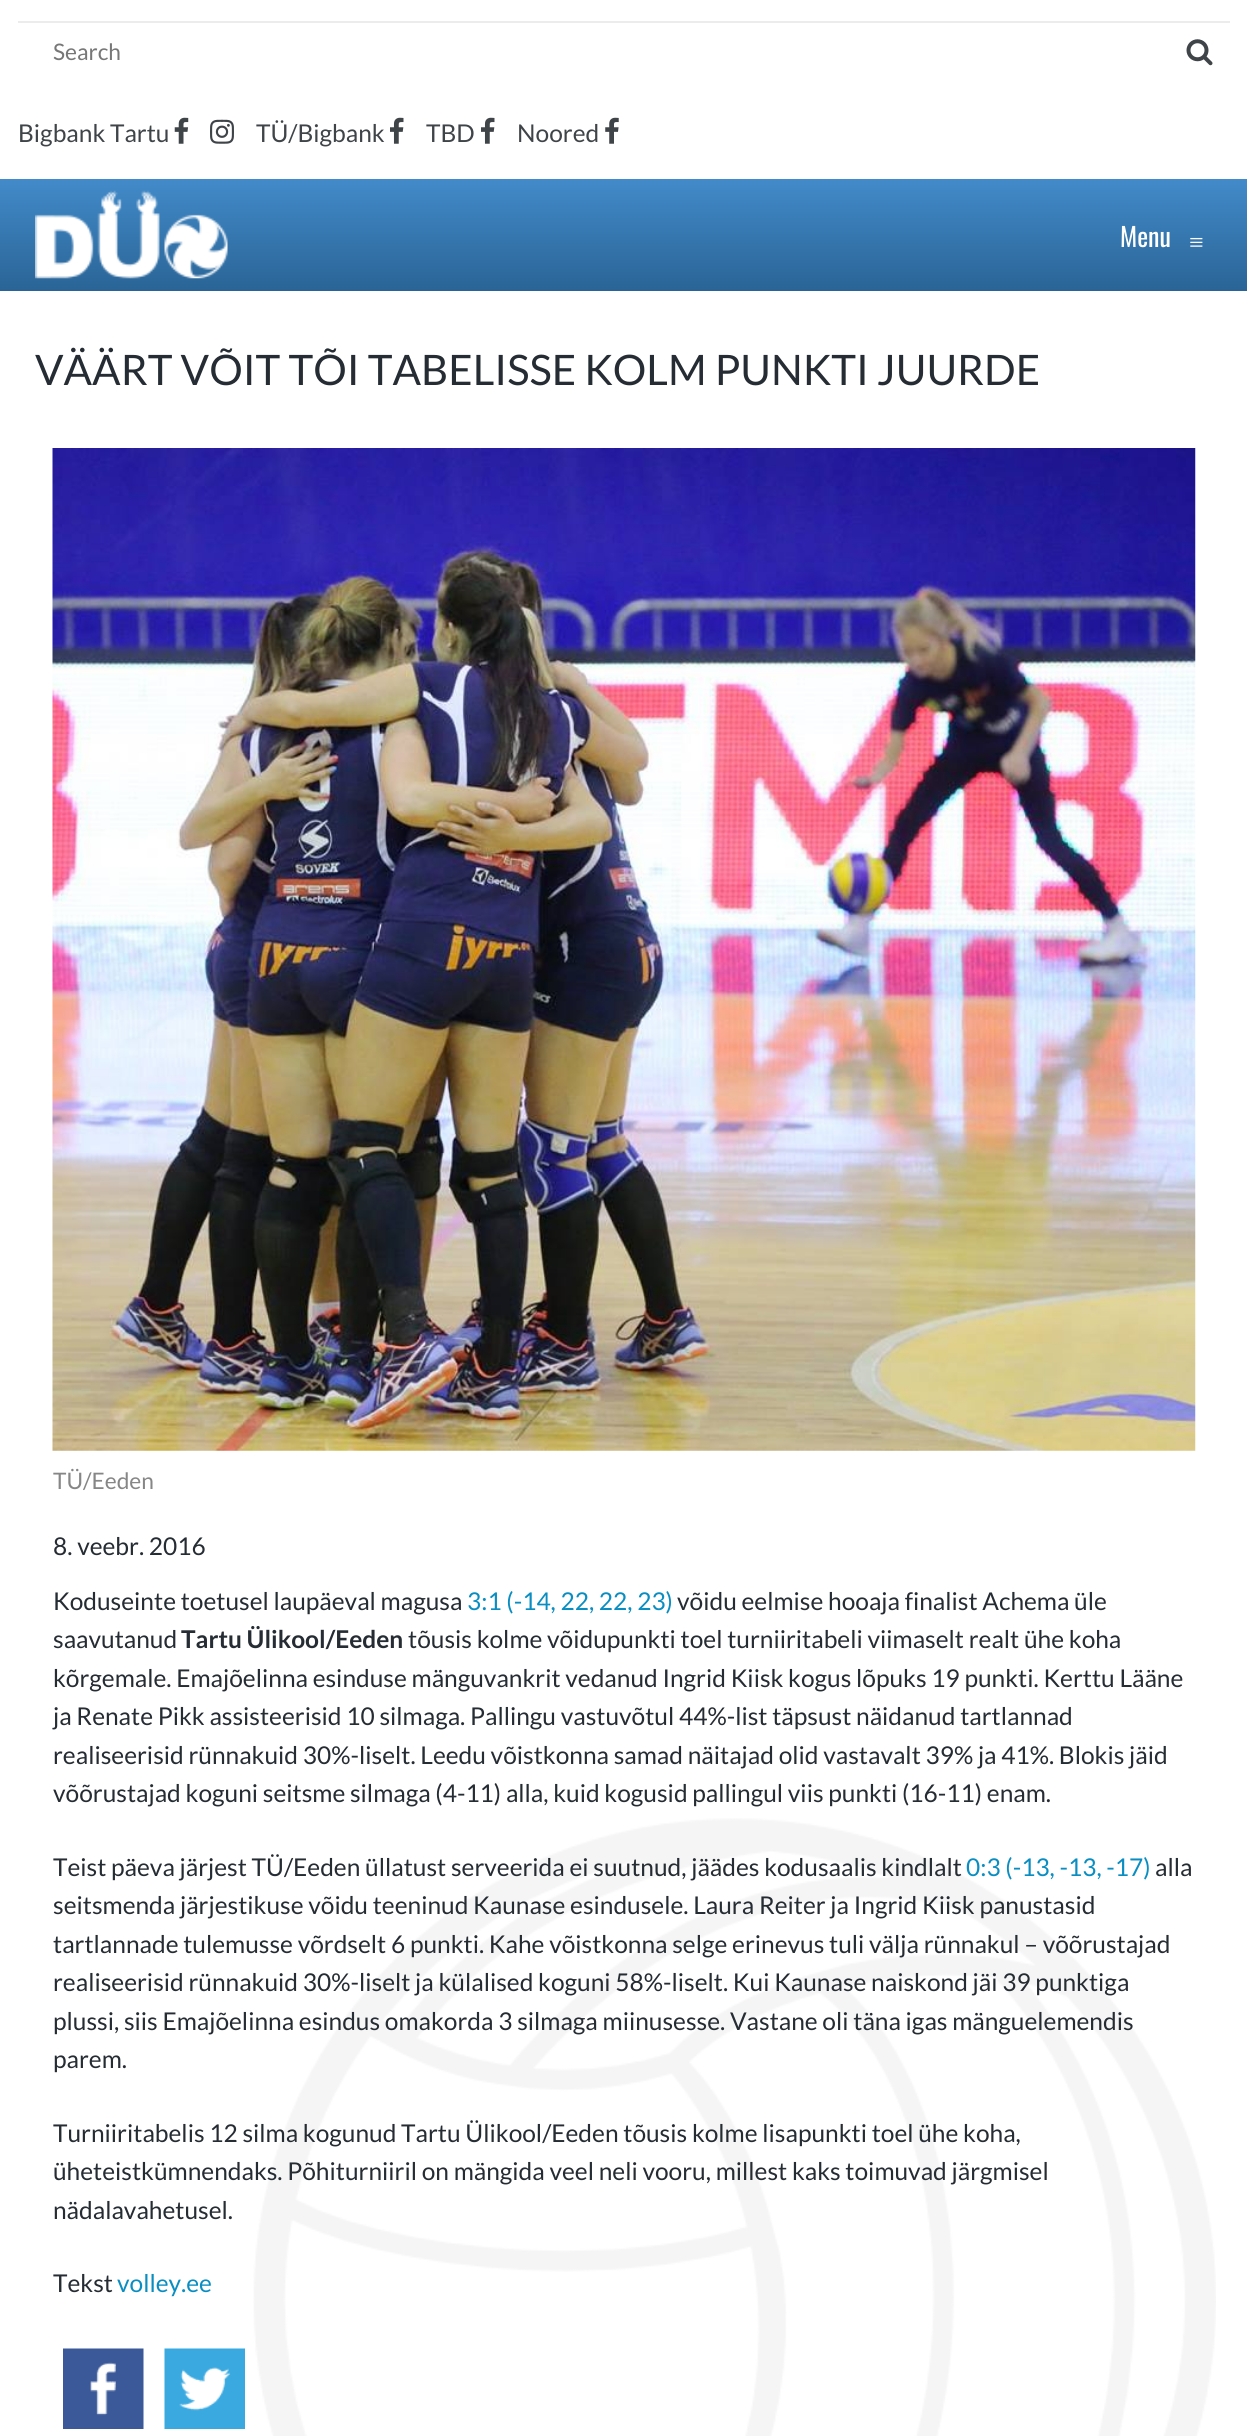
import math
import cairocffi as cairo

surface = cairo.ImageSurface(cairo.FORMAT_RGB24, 1247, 2436)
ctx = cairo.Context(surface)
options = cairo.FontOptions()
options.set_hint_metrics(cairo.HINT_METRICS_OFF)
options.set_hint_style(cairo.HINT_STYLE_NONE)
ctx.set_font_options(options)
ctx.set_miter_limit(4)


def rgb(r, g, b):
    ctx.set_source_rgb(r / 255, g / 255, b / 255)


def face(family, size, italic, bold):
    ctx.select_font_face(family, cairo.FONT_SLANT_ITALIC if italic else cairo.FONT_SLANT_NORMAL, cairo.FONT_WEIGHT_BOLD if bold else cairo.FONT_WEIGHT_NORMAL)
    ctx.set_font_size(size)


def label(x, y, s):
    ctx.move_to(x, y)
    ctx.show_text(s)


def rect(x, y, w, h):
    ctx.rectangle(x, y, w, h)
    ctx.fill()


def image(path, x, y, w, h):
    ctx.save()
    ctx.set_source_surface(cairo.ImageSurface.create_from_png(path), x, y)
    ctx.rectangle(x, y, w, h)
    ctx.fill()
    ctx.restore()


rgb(255, 255, 255)
ctx.paint()
rgb(236, 236, 236)
rect(18, 21, 1212, 2)
face('Lato', 22.75, 0, 0)
rgb(119, 119, 119)
label(53, 60, 'Search')
image('image0.png', 1186, 39, 27, 27)
face('Lato', 24.5, 0, 0)
rgb(63, 68, 72)
label(18, 142, 'Bigbank Tartu')
image('image1.png', 174, 117, 15, 27)
image('image2.png', 210, 119, 24, 25)
label(256, 142, 'TÜ/Bigbank')
image('image3.png', 390, 117, 14, 27)
label(426, 142, 'TBD')
image('image3.png', 481, 117, 14, 27)
label(517, 142, 'Noored')
image('image4.png', 605, 117, 14, 27)
gradient = cairo.LinearGradient(624, 178, 624, 291)
gradient.add_color_stop_rgba(0, 0.259, 0.545, 0.792, 1)
gradient.add_color_stop_rgba(1, 0.165, 0.392, 0.588, 1)
ctx.set_source(gradient)
rect(0, 179, 1247, 112)
image('image5.png', 35, 190, 193, 89)
face('Oswald', 26, 0, 0)
rgb(255, 255, 255)
label(1120, 247, 'Menu')
face('Liberation Serif', 26, 0, 0)
label(1189, 251, '≡')
image('image6.png', 253, 1818, 963, 618)
face('Lato', 42, 0, 0)
rgb(37, 44, 51)
label(35, 385, 'VÄÄRT VÕIT TÕI TABELISSE KOLM PUNKTI JUURDE')
image('image7.png', 52, 448, 1144, 1003)
face('Lato', 22.75, 0, 0)
rgb(134, 134, 134)
label(53, 1489, 'TÜ/Eeden')
face('Lato', 24.5, 0, 0)
rgb(37, 44, 51)
label(53, 1555, '8. veebr. 2016')
label(53, 1610, 'Koduseinte toetusel laupäeval magusa')
rgb(10, 142, 194)
label(467, 1610, '3:1 (-14, 22, 22, 23)')
rgb(37, 44, 51)
label(677, 1610, 'võidu eelmise hooaja finalist Achema üle')
label(53, 1648, 'saavutanud')
face('Lato', 24.5, 0, 1)
label(181, 1648, 'Tartu Ülikool/Eeden')
face('Lato', 24.5, 0, 0)
label(408, 1648, 'tõusis kolme võidupunkti toel turniiritabeli viimaselt realt ühe koha')
label(53, 1687, 'kõrgemale. Emajõelinna esinduse mänguvankrit vedanud Ingrid Kiisk kogus lõpuks 19 punkti. Kerttu Lääne')
label(53, 1725, 'ja Renate Pikk assisteerisid 10 silmaga. Pallingu vastuvõtul 44%-list täpsust näidanud tartlannad')
label(53, 1764, 'realiseerisid rünnakuid 30%-liselt. Leedu võistkonna samad näitajad olid vastavalt 39% ja 41%. Blokis jäid')
label(53, 1802, 'võõrustajad koguni seitsme silmaga (4-11) alla, kuid kogusid pallingul viis punkti (16-11) enam.')
label(53, 1876, 'Teist päeva järjest TÜ/Eeden üllatust serveerida ei suutnud, jäädes kodusaalis kindlalt')
rgb(10, 142, 194)
label(966, 1876, '0:3 (-13, -13, -17)')
rgb(37, 44, 51)
label(1155, 1876, 'alla')
label(53, 1914, 'seitsmenda järjestikuse võidu teeninud Kaunase esindusele. Laura Reiter ja Ingrid Kiisk panustasid')
label(53, 1953, 'tartlannade tulemusse võrdselt 6 punkti. Kahe võistkonna selge erinevus tuli välja rünnakul – võõrustajad')
label(53, 1991, 'realiseerisid rünnakuid 30%-liselt ja külalised koguni 58%-liselt. Kui Kaunase naiskond jäi 39 punktiga')
label(53, 2030, 'plussi, siis Emajõelinna esindus omakorda 3 silmaga miinusesse. Vastane oli täna igas mänguelemendis')
label(53, 2068, 'parem.')
label(53, 2142, 'Turniiritabelis 12 silma kogunud Tartu Ülikool/Eeden tõusis kolme lisapunkti toel ühe koha,')
label(53, 2180, 'üheteistkümnendaks. Põhiturniiril on mängida veel neli vooru, millest kaks toimuvad järgmisel')
label(53, 2219, 'nädalavahetusel.')
label(53, 2292, 'Tekst')
rgb(10, 142, 194)
label(117, 2292, 'volley.ee')
image('image8.png', 63, 2348, 81, 81)
image('image9.png', 164, 2348, 81, 81)
surface.write_to_png('render.png')
